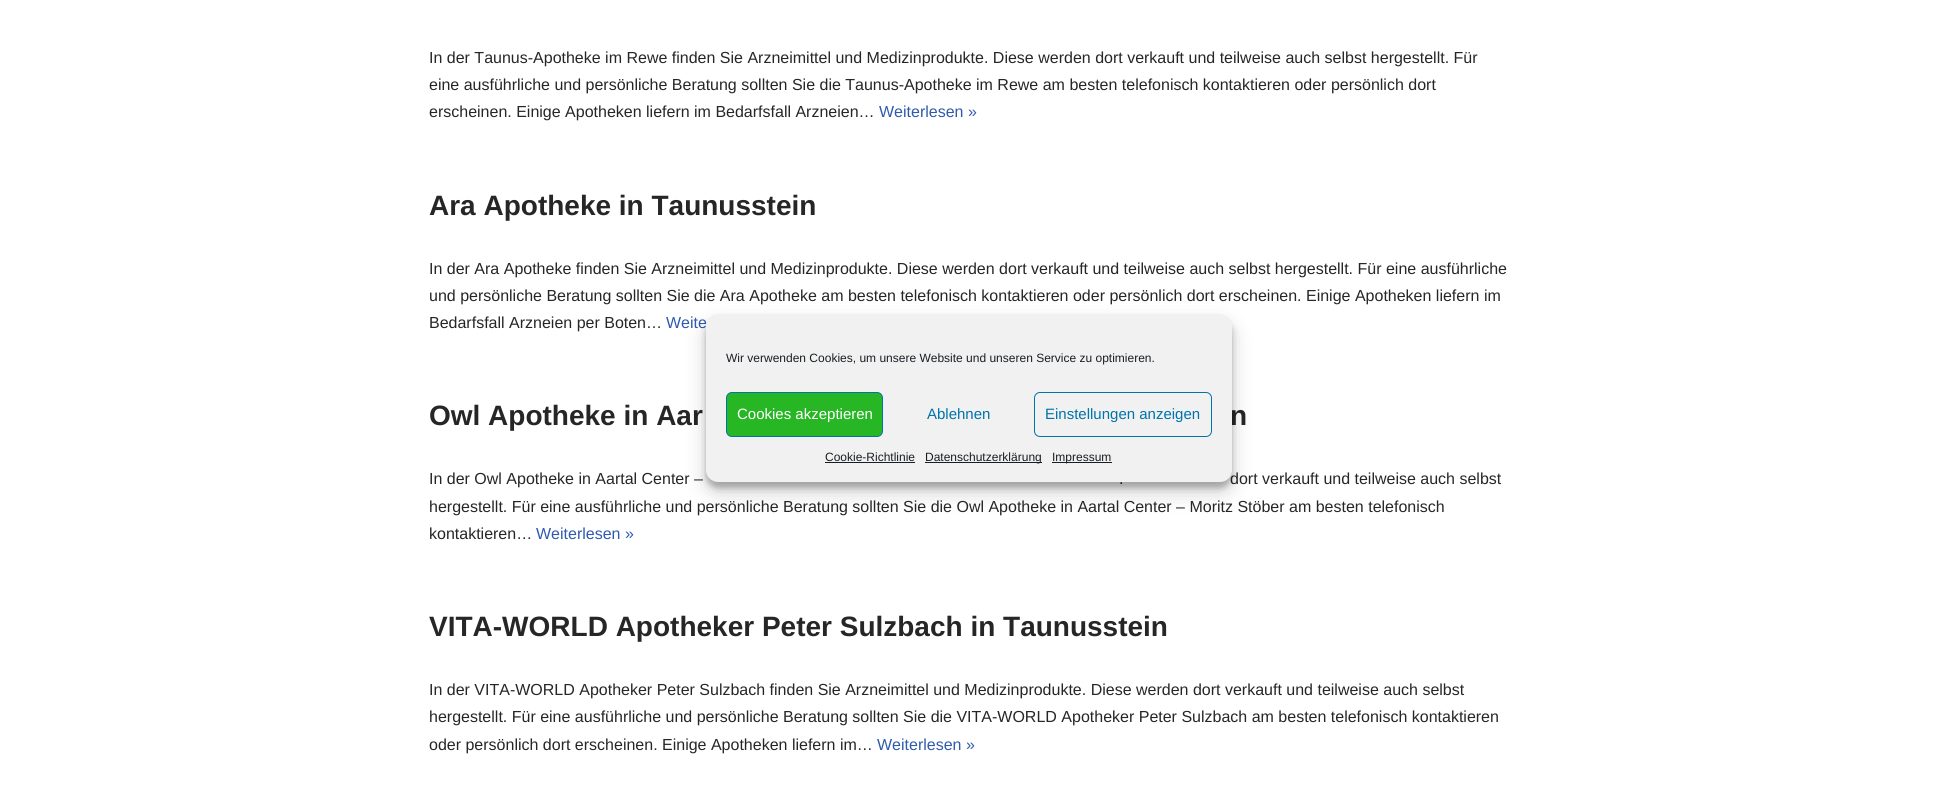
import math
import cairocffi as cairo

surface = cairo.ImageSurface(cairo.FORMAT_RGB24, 1937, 796)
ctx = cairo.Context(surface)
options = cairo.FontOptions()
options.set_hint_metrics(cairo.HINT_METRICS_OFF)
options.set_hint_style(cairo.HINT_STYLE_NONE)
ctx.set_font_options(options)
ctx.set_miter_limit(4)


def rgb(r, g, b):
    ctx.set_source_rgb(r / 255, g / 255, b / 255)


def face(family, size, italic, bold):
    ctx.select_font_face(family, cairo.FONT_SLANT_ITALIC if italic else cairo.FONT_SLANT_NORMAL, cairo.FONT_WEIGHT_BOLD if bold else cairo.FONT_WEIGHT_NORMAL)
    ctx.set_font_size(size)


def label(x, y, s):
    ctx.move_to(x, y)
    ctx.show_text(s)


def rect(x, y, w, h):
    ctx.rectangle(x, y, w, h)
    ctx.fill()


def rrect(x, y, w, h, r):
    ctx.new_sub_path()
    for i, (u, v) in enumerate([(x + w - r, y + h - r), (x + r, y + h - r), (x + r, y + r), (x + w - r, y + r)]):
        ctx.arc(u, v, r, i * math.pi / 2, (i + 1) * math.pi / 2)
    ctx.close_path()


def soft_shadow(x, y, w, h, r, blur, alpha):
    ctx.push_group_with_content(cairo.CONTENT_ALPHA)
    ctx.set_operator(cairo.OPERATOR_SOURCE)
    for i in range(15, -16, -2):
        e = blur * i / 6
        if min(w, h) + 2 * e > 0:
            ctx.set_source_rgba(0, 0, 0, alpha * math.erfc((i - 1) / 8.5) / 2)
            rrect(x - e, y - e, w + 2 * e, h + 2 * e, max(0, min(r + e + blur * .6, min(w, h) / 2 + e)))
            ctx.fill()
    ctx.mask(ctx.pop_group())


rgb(255, 255, 255)
ctx.paint()
face('Liberation Sans', 16, 0, 0)
rgb(39, 38, 38)
label(429, 63, 'In der Taunus-Apotheke im Rewe finden Sie Arzneimittel und Medizinprodukte. Diese werden dort verkauft und teilweise auch selbst hergestellt. Für')
label(429, 90, 'eine ausführliche und persönliche Beratung sollten Sie die Taunus-Apotheke im Rewe am besten telefonisch kontaktieren oder persönlich dort')
label(429, 117, 'erscheinen. Einige Apotheken liefern im Bedarfsfall Arzneien…')
rgb(47, 90, 174)
label(879, 117, 'Weiterlesen »')
face('Liberation Sans', 28, 0, 1)
rgb(39, 38, 38)
label(429, 215, 'Ara Apotheke in Taunusstein')
face('Liberation Sans', 16, 0, 0)
label(429, 274, 'In der Ara Apotheke finden Sie Arzneimittel und Medizinprodukte. Diese werden dort verkauft und teilweise auch selbst hergestellt. Für eine ausführliche')
label(429, 301, 'und persönliche Beratung sollten Sie die Ara Apotheke am besten telefonisch kontaktieren oder persönlich dort erscheinen. Einige Apotheken liefern im')
label(429, 328, 'Bedarfsfall Arzneien per Boten…')
rgb(47, 90, 174)
label(666, 328, 'Weite')
face('Liberation Sans', 28, 0, 1)
rgb(39, 38, 38)
label(429, 425, 'Owl Apotheke in Aar')
label(1230, 425, 'n')
face('Liberation Sans', 16, 0, 0)
label(429, 484, 'In der Owl Apotheke in Aartal Center –')
label(1119, 484, '.')
label(1230, 484, 'dort verkauft und teilweise auch selbst')
label(429, 512, 'hergestellt. Für eine ausführliche und persönliche Beratung sollten Sie die Owl Apotheke in Aartal Center – Moritz Stöber am besten telefonisch')
label(429, 539, 'kontaktieren…')
rgb(47, 90, 174)
label(536, 539, 'Weiterlesen »')
face('Liberation Sans', 28, 0, 1)
rgb(39, 38, 38)
label(429, 636, 'VITA-WORLD Apotheker Peter Sulzbach in Taunusstein')
face('Liberation Sans', 16, 0, 0)
label(429, 695, 'In der VITA-WORLD Apotheker Peter Sulzbach finden Sie Arzneimittel und Medizinprodukte. Diese werden dort verkauft und teilweise auch selbst')
label(429, 722, 'hergestellt. Für eine ausführliche und persönliche Beratung sollten Sie die VITA-WORLD Apotheker Peter Sulzbach am besten telefonisch kontaktieren')
label(429, 750, 'oder persönlich dort erscheinen. Einige Apotheken liefern im…')
rgb(47, 90, 174)
label(877, 750, 'Weiterlesen »')
rgb(0, 0, 0)
soft_shadow(706, 320, 526, 168, 12, 3, 0.23)
soft_shadow(706, 324, 526, 168, 12, 10, 0.19)
rgb(241, 241, 241)
rrect(706, 314, 526, 168, 12)
ctx.fill()
face('Liberation Sans', 12, 0, 0)
rgb(25, 30, 35)
label(726, 362, 'Wir verwenden Cookies, um unsere Website und unseren Service zu optimieren.')
rgb(39, 183, 36)
rrect(726.5, 392.5, 156, 44, 5.5)
ctx.fill_preserve()
rgb(0, 115, 170)
ctx.set_line_width(1)
ctx.stroke()
face('Liberation Sans', 15, 0, 0)
rgb(255, 255, 255)
label(737, 419, 'Cookies akzeptieren')
rgb(0, 115, 170)
label(927, 419, 'Ablehnen')
rrect(1034.5, 392.5, 177, 44, 5.5)
ctx.stroke()
label(1045, 419, 'Einstellungen anzeigen')
face('Liberation Sans', 12, 0, 0)
rgb(25, 30, 35)
label(825, 461, 'Cookie-Richtlinie')
rect(825, 462, 90, 1)
rect(925, 462, 117, 1)
label(925, 461, 'Datenschutzerklärung')
rect(1052, 462, 60, 1)
label(1052, 461, 'Impressum')
surface.write_to_png('render.png')
